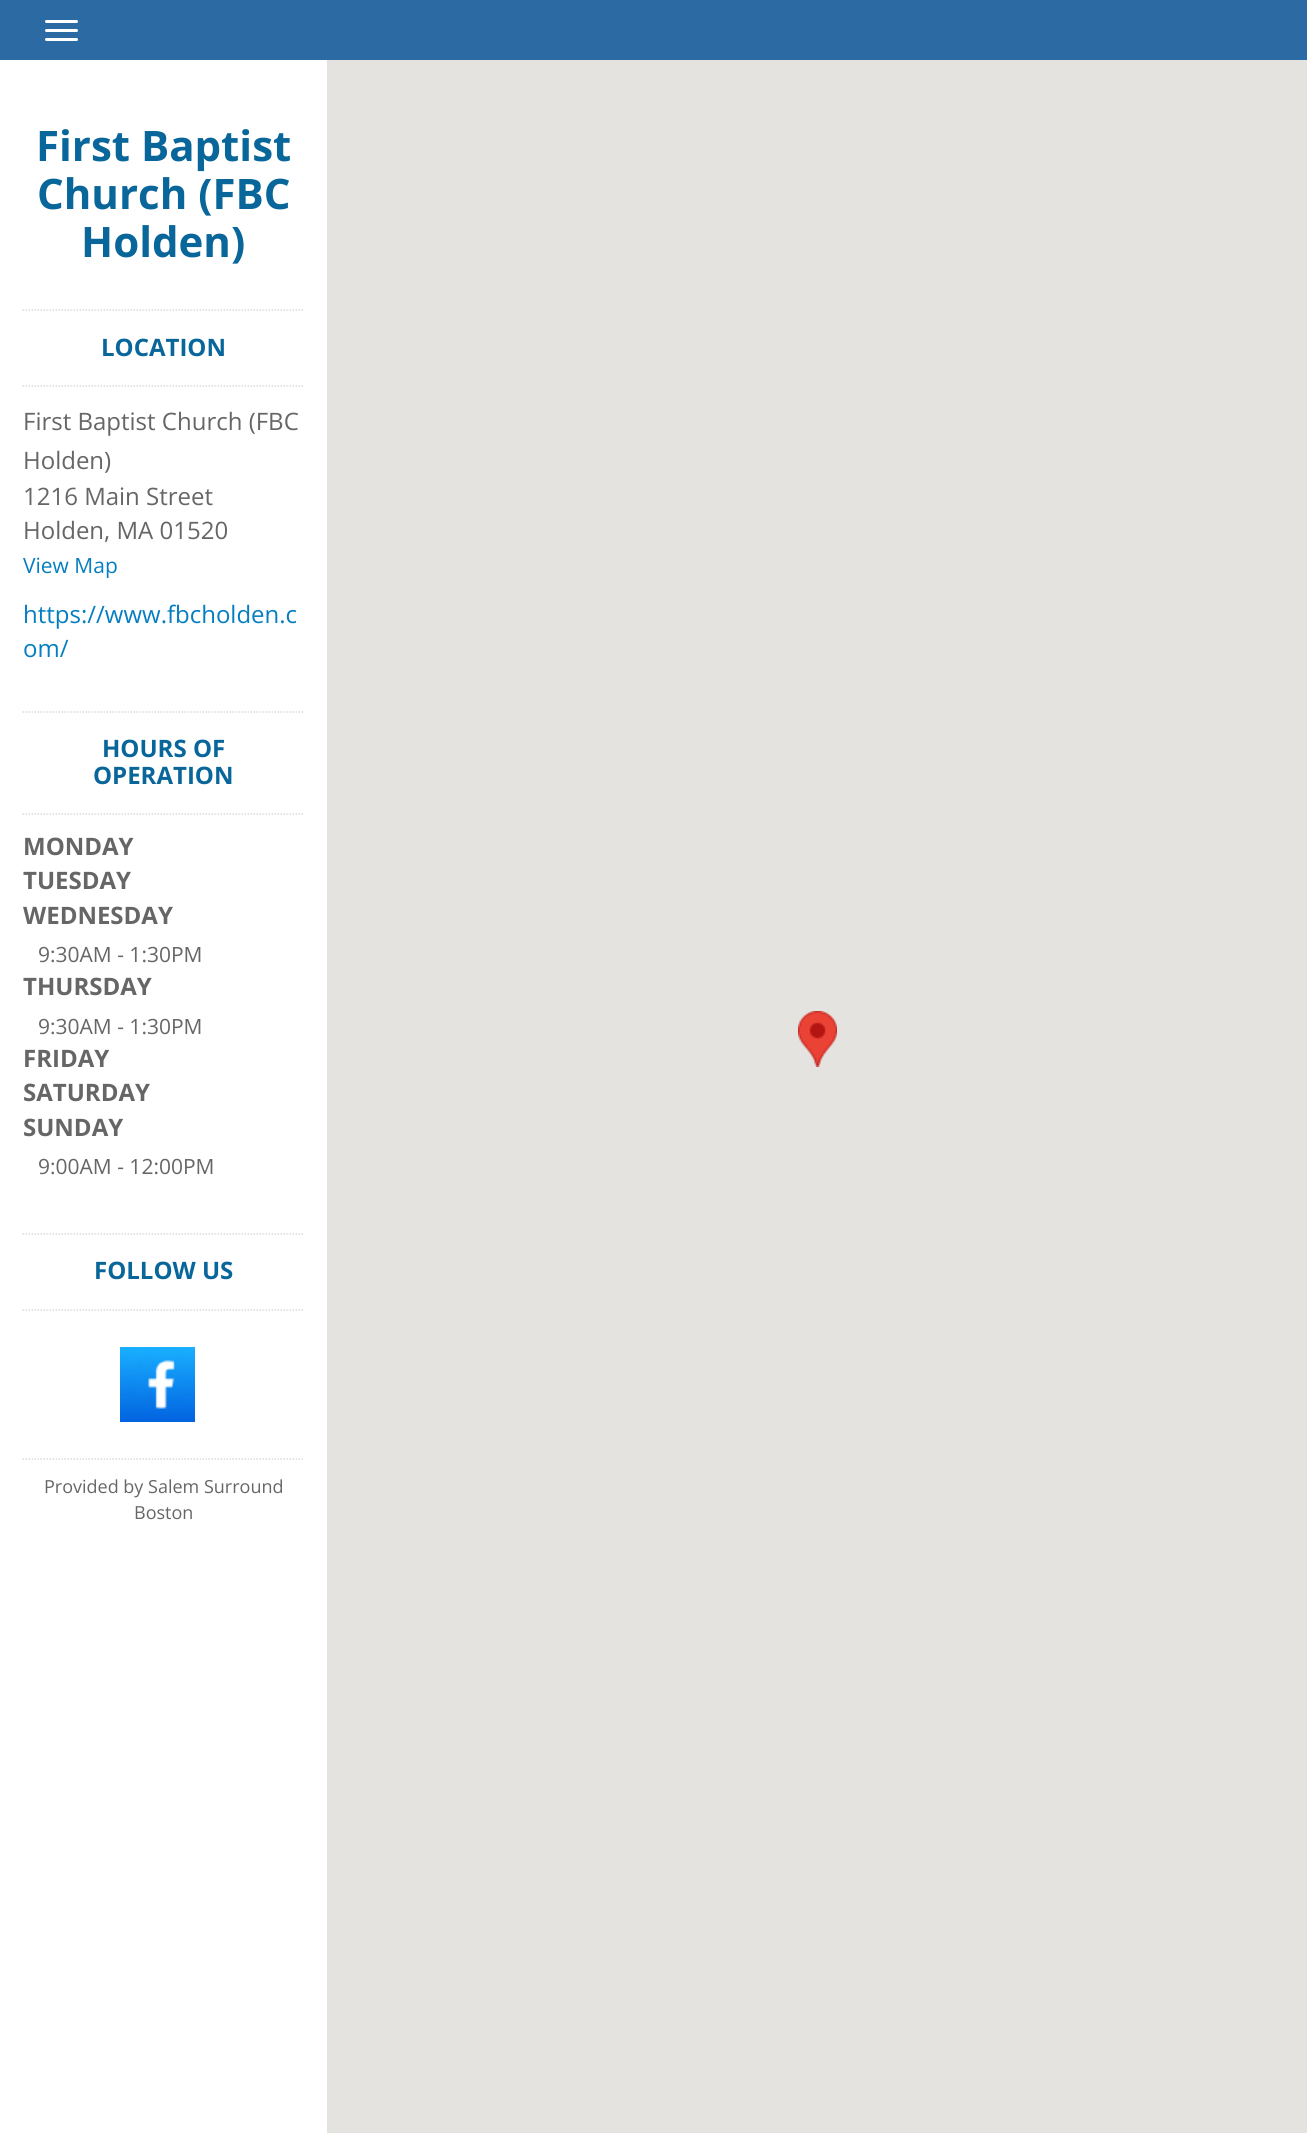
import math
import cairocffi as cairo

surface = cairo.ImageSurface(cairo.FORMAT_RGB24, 1307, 2133)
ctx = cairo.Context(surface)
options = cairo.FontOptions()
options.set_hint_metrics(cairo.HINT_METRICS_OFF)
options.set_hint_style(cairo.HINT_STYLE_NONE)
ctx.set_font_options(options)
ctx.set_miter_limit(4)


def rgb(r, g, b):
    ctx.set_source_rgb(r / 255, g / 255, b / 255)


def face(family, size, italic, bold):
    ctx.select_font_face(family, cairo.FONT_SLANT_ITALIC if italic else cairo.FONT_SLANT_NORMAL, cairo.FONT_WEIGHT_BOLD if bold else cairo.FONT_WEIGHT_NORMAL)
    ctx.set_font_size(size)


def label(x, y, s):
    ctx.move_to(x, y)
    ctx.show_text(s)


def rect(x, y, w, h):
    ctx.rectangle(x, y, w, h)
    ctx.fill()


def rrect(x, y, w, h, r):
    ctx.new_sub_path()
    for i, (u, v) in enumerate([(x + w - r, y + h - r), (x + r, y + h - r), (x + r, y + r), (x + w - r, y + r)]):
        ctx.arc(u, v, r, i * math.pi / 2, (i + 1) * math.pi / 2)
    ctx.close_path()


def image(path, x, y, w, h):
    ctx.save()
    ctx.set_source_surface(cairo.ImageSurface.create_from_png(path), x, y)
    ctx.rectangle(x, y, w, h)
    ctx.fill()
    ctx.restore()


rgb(255, 255, 255)
ctx.paint()
rgb(43, 106, 163)
rect(0, 0, 1307, 60)
rgb(255, 255, 255)
rrect(45, 20, 33, 3, 1.5)
ctx.fill()
rrect(45, 29, 33, 3, 1.5)
ctx.fill()
rrect(45, 38, 33, 3, 1.5)
ctx.fill()
face('Open Sans', 42, 0, 1)
rgb(9, 102, 154)
label(36, 161, 'First Baptist')
label(37, 209, 'Church (FBC')
label(81, 257, 'Holden)')
ctx.new_path()
ctx.move_to(22.5, 310)
ctx.line_to(304.5, 310)
rgb(218, 218, 218)
ctx.set_line_width(1.5)
ctx.set_dash([1.5, 1.5])
ctx.stroke()
ctx.new_path()
ctx.move_to(22.5, 386)
ctx.line_to(304.5, 386)
ctx.stroke()
face('Open Sans', 24, 0, 1)
rgb(9, 102, 154)
label(101, 356, 'LOCATION')
face('Open Sans', 24, 0, 0)
rgb(102, 102, 102)
label(23, 430, 'First Baptist Church (FBC')
label(23, 469, 'Holden)')
label(23, 505, '1216 Main Street')
label(23, 539, 'Holden, MA 01520')
face('Open Sans', 21, 0, 0)
rgb(5, 126, 193)
label(23, 573, 'View Map')
face('Open Sans', 24, 0, 0)
label(23, 623, 'https://www.fbcholden.c')
label(23, 657, 'om/')
ctx.new_path()
ctx.move_to(22.5, 712)
ctx.line_to(304.5, 712)
rgb(218, 218, 218)
ctx.stroke()
ctx.new_path()
ctx.move_to(22.5, 814)
ctx.line_to(304.5, 814)
ctx.stroke()
face('Open Sans', 24, 0, 1)
rgb(9, 102, 154)
label(102, 757, 'HOURS OF')
label(93, 784, 'OPERATION')
rgb(102, 102, 102)
label(23, 855, 'MONDAY')
label(23, 889, 'TUESDAY')
ctx.save()
ctx.rectangle(23, 711, 282, 477)
ctx.clip()
label(23, 924, 'WEDNESDAY')
ctx.restore()
face('Open Sans', 21, 0, 0)
label(38, 962, '9:30AM - 1:30PM')
face('Open Sans', 24, 0, 1)
label(23, 995, 'THURSDAY')
face('Open Sans', 21, 0, 0)
label(38, 1034, '9:30AM - 1:30PM')
face('Open Sans', 24, 0, 1)
label(23, 1067, 'FRIDAY')
label(23, 1101, 'SATURDAY')
label(23, 1136, 'SUNDAY')
face('Open Sans', 21, 0, 0)
label(38, 1174, '9:00AM - 12:00PM')
ctx.new_path()
ctx.move_to(22.5, 1234)
ctx.line_to(304.5, 1234)
rgb(218, 218, 218)
ctx.stroke()
ctx.new_path()
ctx.move_to(22.5, 1310)
ctx.line_to(304.5, 1310)
ctx.stroke()
face('Open Sans', 24, 0, 1)
rgb(9, 102, 154)
label(94, 1279, 'FOLLOW US')
image('image0.png', 120, 1347, 75, 75)
ctx.new_path()
ctx.move_to(22.5, 1459)
ctx.line_to(304.5, 1459)
rgb(218, 218, 218)
ctx.stroke()
face('Open Sans', 18, 0, 0)
rgb(102, 102, 102)
label(44, 1493, 'Provided by Salem Surround')
label(134, 1519, 'Boston')
rgb(229, 227, 223)
rect(327, 60, 980, 2073)
image('image1.png', 798, 1011, 39, 56)
surface.write_to_png('render.png')
